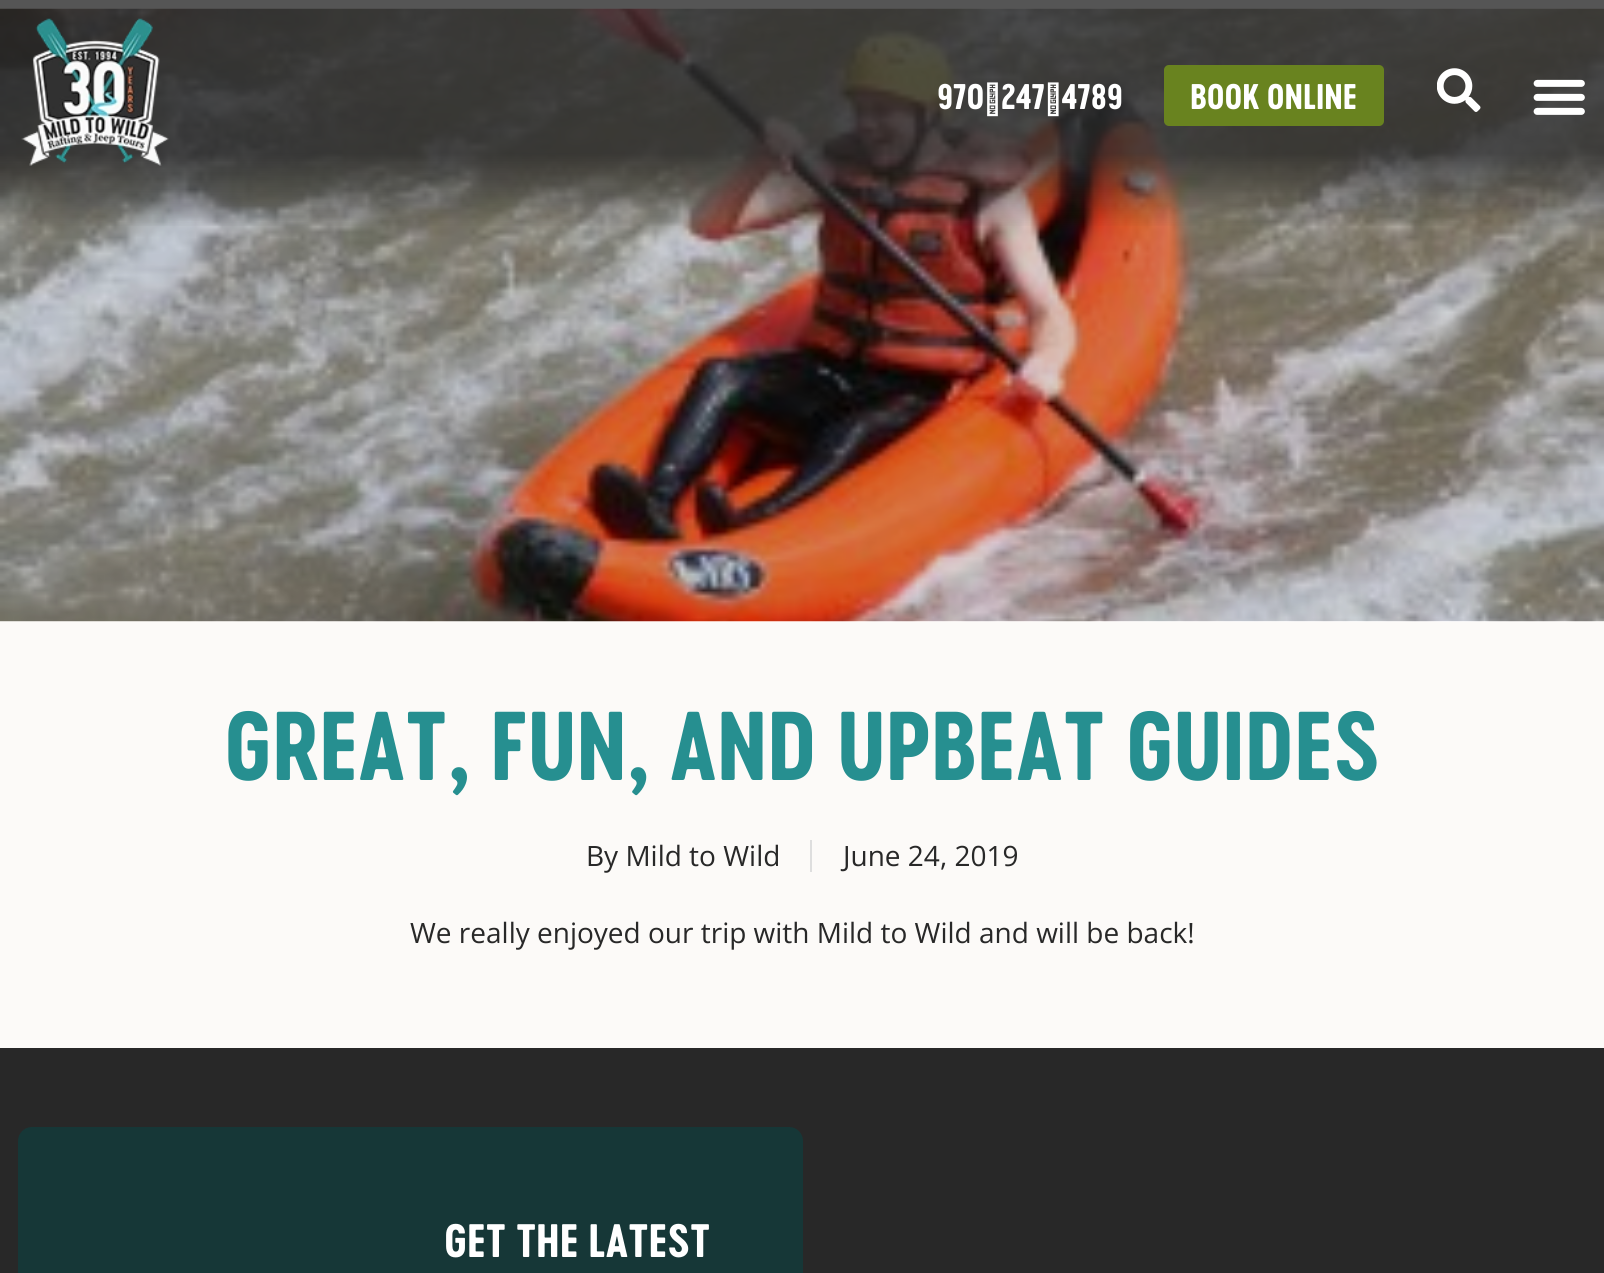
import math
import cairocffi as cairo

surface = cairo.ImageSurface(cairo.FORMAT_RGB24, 1604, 1273)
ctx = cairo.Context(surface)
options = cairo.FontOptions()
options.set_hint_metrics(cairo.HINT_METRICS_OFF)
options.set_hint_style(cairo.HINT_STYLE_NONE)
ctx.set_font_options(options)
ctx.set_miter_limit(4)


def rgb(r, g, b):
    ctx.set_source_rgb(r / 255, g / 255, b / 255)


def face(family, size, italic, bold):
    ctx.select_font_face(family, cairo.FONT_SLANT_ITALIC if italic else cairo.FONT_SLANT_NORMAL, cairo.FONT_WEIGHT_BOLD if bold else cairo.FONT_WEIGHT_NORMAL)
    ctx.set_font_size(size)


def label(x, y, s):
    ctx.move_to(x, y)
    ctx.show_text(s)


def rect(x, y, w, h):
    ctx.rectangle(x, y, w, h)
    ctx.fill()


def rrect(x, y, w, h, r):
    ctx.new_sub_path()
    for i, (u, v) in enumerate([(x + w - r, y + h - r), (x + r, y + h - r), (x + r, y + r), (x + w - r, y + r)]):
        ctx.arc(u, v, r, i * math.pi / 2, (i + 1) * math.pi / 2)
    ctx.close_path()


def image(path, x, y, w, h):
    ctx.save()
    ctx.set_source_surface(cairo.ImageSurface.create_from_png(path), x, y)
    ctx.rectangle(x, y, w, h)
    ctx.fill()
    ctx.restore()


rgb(252, 250, 248)
ctx.paint()
image('image3.png', 0, 8, 1604, 614)
gradient = cairo.LinearGradient(802, 0, 802, 228)
gradient.add_color_stop_rgba(0.67, 0.157, 0.157, 0.157, 0.79)
gradient.add_color_stop_rgba(1, 0.157, 0.157, 0.157, 0)
ctx.set_source(gradient)
rect(0, 0, 1604, 226)
image('image0.png', 21, 18, 148, 148)
face('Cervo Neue', 33.25, 0, 1)
rgb(255, 255, 255)
label(937, 109, '970‑247‑4789')
rgb(105, 131, 31)
rrect(1164, 65, 220, 61, 5)
ctx.fill()
rgb(255, 255, 255)
label(1190, 109, 'BOOK ONLINE')
image('image1.png', 1437, 68, 44, 44)
image('image2.png', 1533, 79, 52, 36)
face('Cervo Neue', 91, 0, 1)
rgb(38, 143, 144)
label(224, 780, 'GREAT, FUN, AND UPBEAT GUIDES')
face('Open Sans', 28, 0, 0)
rgb(40, 40, 40)
label(586, 866, 'By Mild to Wild')
rgb(222, 222, 222)
rect(810, 840, 2, 32)
rgb(40, 40, 40)
label(843, 866, 'June 24, 2019')
label(410, 943, 'We really enjoyed our trip with Mild to Wild and will be back!')
rect(0, 1048, 1604, 225)
rgb(22, 55, 55)
rrect(18, 1127, 785, 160, 14)
ctx.fill()
face('Cervo Neue', 43.75, 0, 1)
rgb(255, 255, 255)
label(444, 1257, 'GET THE LATEST')
surface.write_to_png('render.png')
